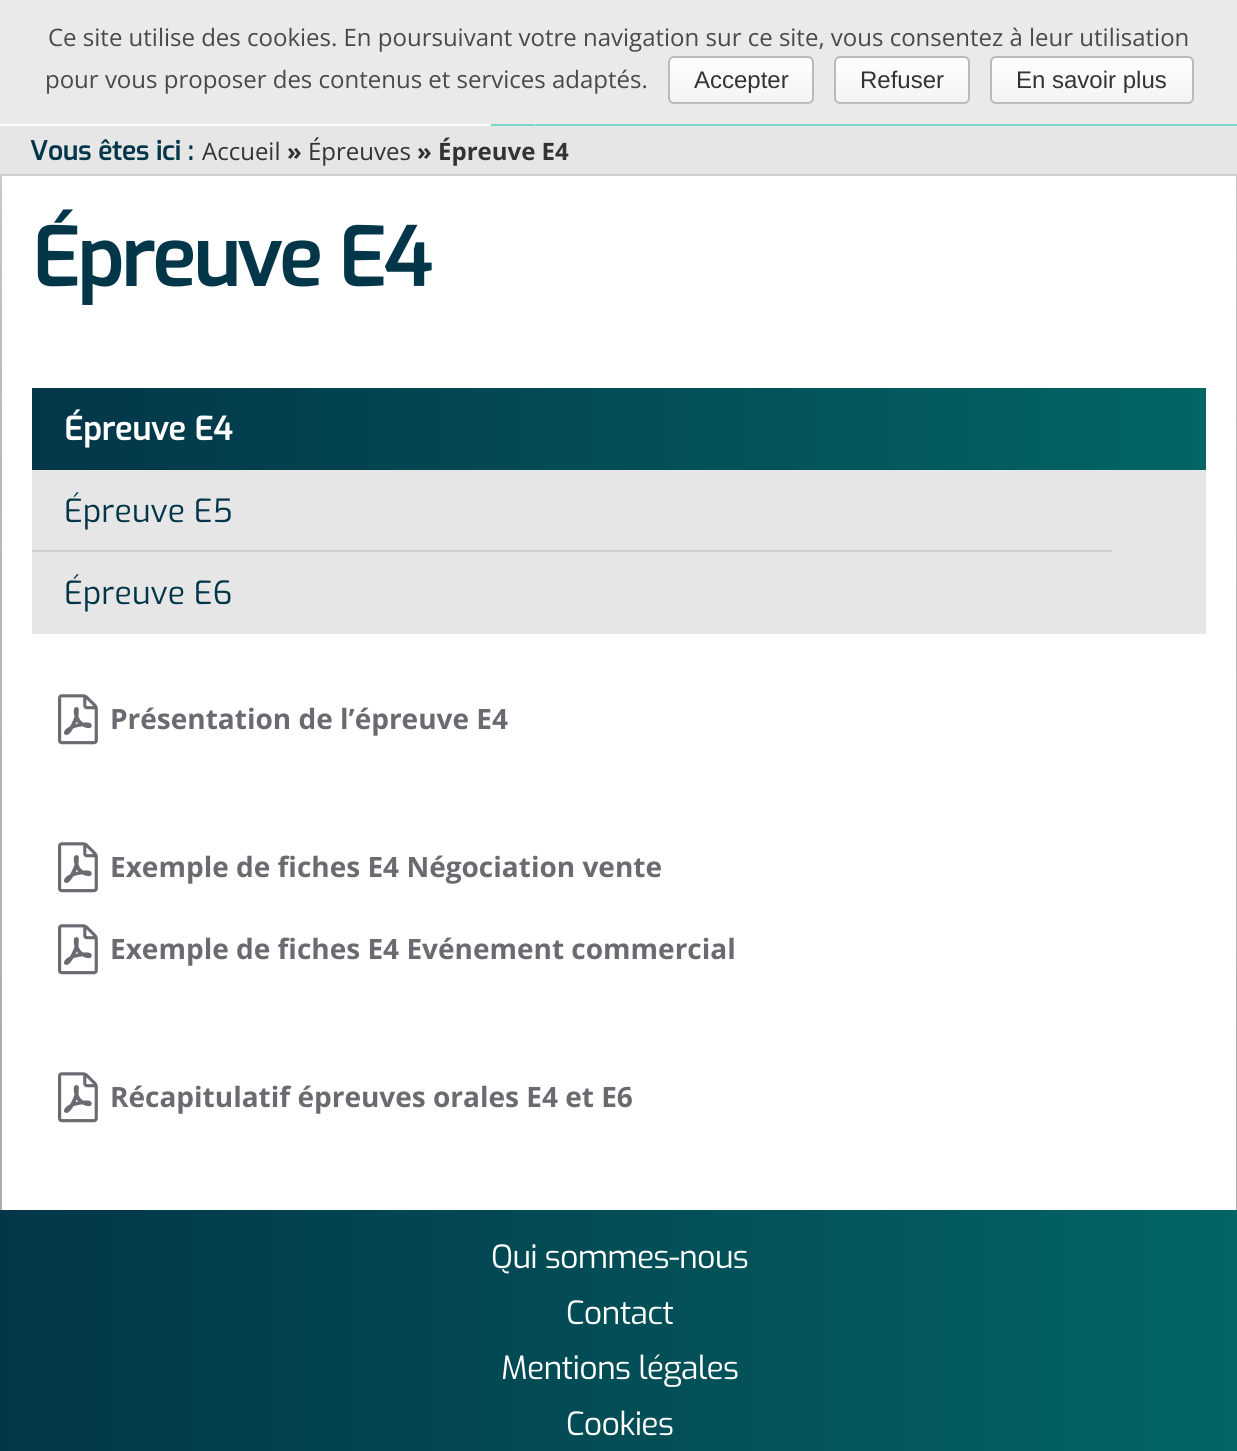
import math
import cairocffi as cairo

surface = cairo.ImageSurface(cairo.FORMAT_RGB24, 1237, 1451)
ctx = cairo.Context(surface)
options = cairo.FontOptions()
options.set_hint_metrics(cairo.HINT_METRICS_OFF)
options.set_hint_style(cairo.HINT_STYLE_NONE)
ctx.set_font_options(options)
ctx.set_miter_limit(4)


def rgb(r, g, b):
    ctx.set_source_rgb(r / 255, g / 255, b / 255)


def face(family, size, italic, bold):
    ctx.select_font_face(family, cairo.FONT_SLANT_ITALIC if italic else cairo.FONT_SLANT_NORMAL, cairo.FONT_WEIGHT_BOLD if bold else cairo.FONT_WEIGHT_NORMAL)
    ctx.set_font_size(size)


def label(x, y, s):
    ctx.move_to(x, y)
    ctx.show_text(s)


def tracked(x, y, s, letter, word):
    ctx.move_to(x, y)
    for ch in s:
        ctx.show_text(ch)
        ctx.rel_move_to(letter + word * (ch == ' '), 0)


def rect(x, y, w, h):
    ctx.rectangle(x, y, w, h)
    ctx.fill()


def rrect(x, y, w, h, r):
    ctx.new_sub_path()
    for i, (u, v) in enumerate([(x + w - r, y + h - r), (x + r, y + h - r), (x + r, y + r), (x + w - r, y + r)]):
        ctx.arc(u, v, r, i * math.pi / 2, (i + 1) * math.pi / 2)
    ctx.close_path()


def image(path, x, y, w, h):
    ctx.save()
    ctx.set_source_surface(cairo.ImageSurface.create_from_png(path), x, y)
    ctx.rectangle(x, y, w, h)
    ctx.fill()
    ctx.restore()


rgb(255, 255, 255)
ctx.paint()
rgb(234, 234, 234)
rect(0, 0, 1237, 124)
face('Open Sans', 24, 0, 0)
rgb(73, 73, 73)
label(48, 46, 'Ce site utilise des cookies. En poursuivant votre navigation sur ce site, vous consentez à leur utilisation')
label(45, 88, 'pour vous proposer des contenus et services adaptés.')
ctx.save()
rrect(668, 56, 146, 48, 6)
ctx.clip()
gradient = cairo.LinearGradient(741, 58, 741, 102)
gradient.add_color_stop_rgba(0, 0.996, 0.996, 0.996, 1)
gradient.add_color_stop_rgba(1, 0.957, 0.957, 0.957, 1)
ctx.set_source(gradient)
rect(668, 58, 146, 44)
ctx.restore()
rrect(669, 57, 144, 46, 5)
rgb(187, 187, 187)
ctx.stroke()
face('Liberation Sans', 24, 0, 0)
rgb(51, 51, 51)
label(694, 88, 'Accepter')
ctx.save()
rrect(834, 56, 136, 48, 6)
ctx.clip()
gradient = cairo.LinearGradient(902, 58, 902, 102)
gradient.add_color_stop_rgba(0, 0.996, 0.996, 0.996, 1)
gradient.add_color_stop_rgba(1, 0.957, 0.957, 0.957, 1)
ctx.set_source(gradient)
rect(834, 58, 136, 44)
ctx.restore()
rrect(835, 57, 134, 46, 5)
rgb(187, 187, 187)
ctx.stroke()
rgb(51, 51, 51)
label(860, 88, 'Refuser')
ctx.save()
rrect(990, 56, 204, 48, 6)
ctx.clip()
gradient = cairo.LinearGradient(1092, 58, 1092, 102)
gradient.add_color_stop_rgba(0, 0.996, 0.996, 0.996, 1)
gradient.add_color_stop_rgba(1, 0.957, 0.957, 0.957, 1)
ctx.set_source(gradient)
rect(990, 58, 204, 44)
ctx.restore()
rrect(991, 57, 202, 46, 5)
rgb(187, 187, 187)
ctx.stroke()
rgb(51, 51, 51)
label(1016, 88, 'En savoir plus')
image('image0.png', 490, 124, 46, 2)
rgb(124, 214, 206)
rect(536, 124, 701, 2)
rgb(230, 230, 230)
rect(0, 126, 1237, 48)
rgb(206, 206, 206)
rect(0, 174, 1237, 2)
face('Exo', 26, 0, 1)
rgb(3, 54, 73)
label(30, 160, 'Vous êtes ici :')
face('Open Sans', 24, 0, 0)
rgb(51, 51, 51)
label(202, 160, 'Accueil')
face('Open Sans', 24, 0, 1)
label(287, 160, '»')
face('Open Sans', 24, 0, 0)
label(308, 160, 'Épreuves')
face('Open Sans', 24, 0, 1)
label(417, 160, '» Épreuve E4')
rgb(206, 206, 206)
rect(1236, 176, 1, 1034)
rect(0, 176, 2, 1034)
image('image1.png', 0, 176, 2, 1034)
face('Exo', 80, 0, 1)
rgb(3, 54, 73)
tracked(32, 286, 'Épreuve E4', -2.4, 0)
gradient = cairo.LinearGradient(32, 429, 1206, 429)
gradient.add_color_stop_rgba(0, 0.012, 0.212, 0.286, 1)
gradient.add_color_stop_rgba(1, 0.012, 0.396, 0.392, 1)
ctx.set_source(gradient)
rect(32, 388, 1174, 82)
face('Exo', 32, 0, 1)
rgb(255, 255, 255)
label(64, 440, 'Épreuve E4')
rgb(230, 230, 230)
rect(32, 470, 1174, 164)
face('Exo', 32, 0, 0)
rgb(3, 54, 73)
label(64, 522, 'Épreuve E5')
rgb(206, 206, 206)
rect(32, 550, 1080, 2)
rgb(3, 54, 73)
label(64, 604, 'Épreuve E6')
image('image2.png', 58, 694, 40, 51)
face('Open Sans', 28, 0, 1)
rgb(109, 105, 113)
label(110, 729, 'Présentation de l’épreuve E4')
image('image2.png', 58, 842, 40, 51)
label(110, 877, 'Exemple de fiches E4 Négociation vente')
image('image2.png', 58, 924, 40, 51)
label(110, 959, 'Exemple de fiches E4 Evénement commercial')
image('image2.png', 58, 1072, 40, 51)
label(110, 1107, 'Récapitulatif épreuves orales E4 et E6')
image('image3.png', 1236, 176, 1, 1034)
gradient = cairo.LinearGradient(0, 1342, 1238, 1342)
gradient.add_color_stop_rgba(0, 0.012, 0.212, 0.286, 1)
gradient.add_color_stop_rgba(1, 0.012, 0.396, 0.392, 1)
ctx.set_source(gradient)
rect(0, 1210, 1237, 241)
face('Exo', 32, 0, 0)
rgb(255, 255, 255)
tracked(491, 1268, 'Qui sommes-nous', -0.75, 0)
tracked(566, 1324, 'Contact', -0.75, 0)
tracked(501, 1379, 'Mentions légales', -0.75, 0)
tracked(566, 1435, 'Cookies', -0.75, 0)
surface.write_to_png('render.png')
